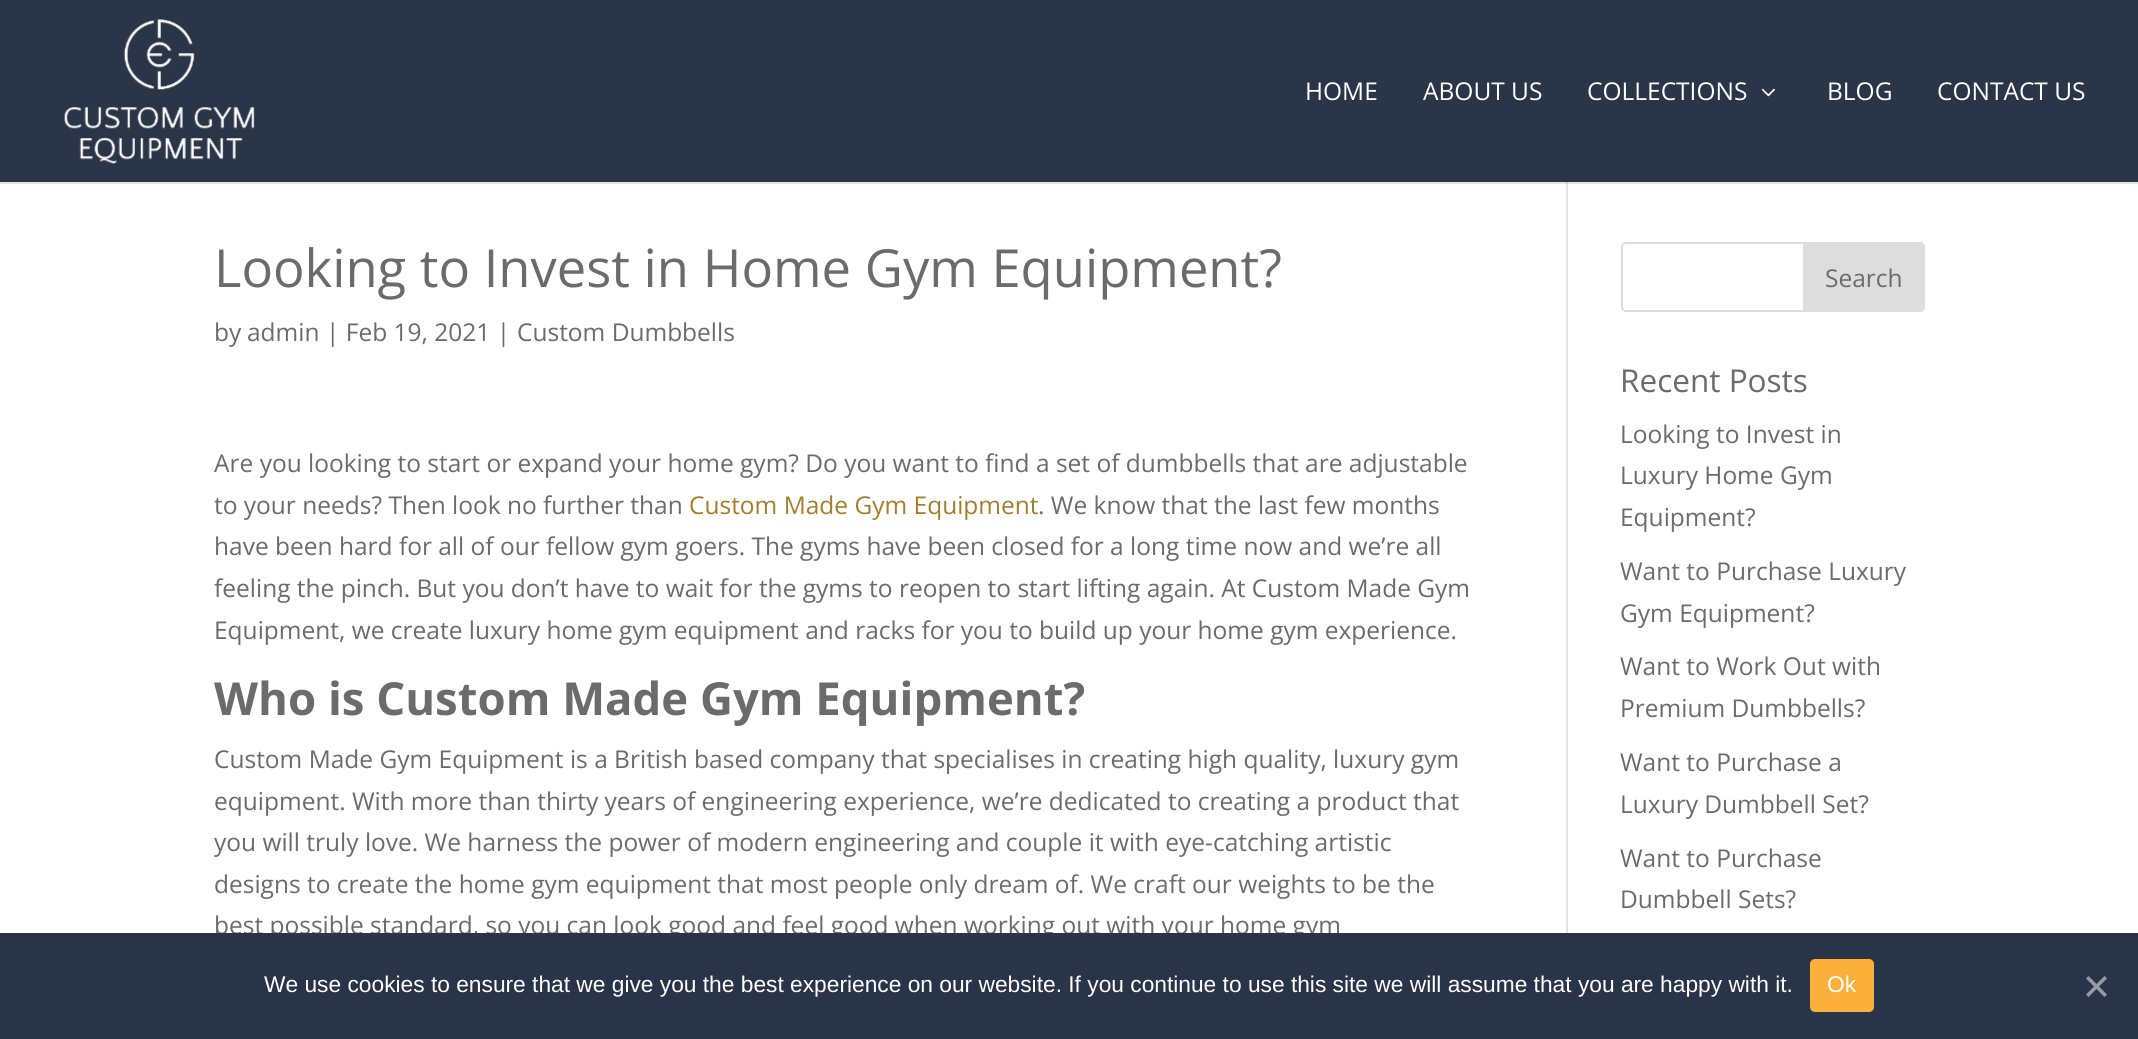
import math
import cairocffi as cairo

surface = cairo.ImageSurface(cairo.FORMAT_RGB24, 2138, 1039)
ctx = cairo.Context(surface)
options = cairo.FontOptions()
options.set_hint_metrics(cairo.HINT_METRICS_OFF)
options.set_hint_style(cairo.HINT_STYLE_NONE)
ctx.set_font_options(options)
ctx.set_miter_limit(4)


def rgb(r, g, b):
    ctx.set_source_rgb(r / 255, g / 255, b / 255)


def face(family, size, italic, bold):
    ctx.select_font_face(family, cairo.FONT_SLANT_ITALIC if italic else cairo.FONT_SLANT_NORMAL, cairo.FONT_WEIGHT_BOLD if bold else cairo.FONT_WEIGHT_NORMAL)
    ctx.set_font_size(size)


def label(x, y, s):
    ctx.move_to(x, y)
    ctx.show_text(s)


def rect(x, y, w, h):
    ctx.rectangle(x, y, w, h)
    ctx.fill()


def rrect(x, y, w, h, r):
    ctx.new_sub_path()
    for i, (u, v) in enumerate([(x + w - r, y + h - r), (x + r, y + h - r), (x + r, y + r), (x + w - r, y + r)]):
        ctx.arc(u, v, r, i * math.pi / 2, (i + 1) * math.pi / 2)
    ctx.close_path()


def image(path, x, y, w, h):
    ctx.save()
    ctx.set_source_surface(cairo.ImageSurface.create_from_png(path), x, y)
    ctx.rectangle(x, y, w, h)
    ctx.fill()
    ctx.restore()


rgb(255, 255, 255)
ctx.paint()
rgb(226, 226, 226)
rect(1566, 182, 2, 751)
ctx.set_source_rgba(0, 0, 0, 0.1)
ctx.new_path()
ctx.move_to(0, 182)
ctx.line_to(0, 184)
ctx.line_to(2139, 184)
ctx.line_to(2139, 2)
ctx.line_to(2138, 2)
ctx.line_to(2138, 182)
ctx.close_path()
ctx.fill()
rgb(42, 53, 72)
rect(0, 0, 2138, 182)
image('image0.png', 64, 19, 191, 145)
face('Open Sans', 24.5, 0, 0)
rgb(255, 255, 255)
label(1305, 100, 'HOME')
label(1423, 100, 'ABOUT US')
label(1587, 100, 'COLLECTIONS')
image('image1.png', 1761, 88, 14, 9)
label(1827, 100, 'BLOG')
label(1937, 100, 'CONTACT US')
face('Open Sans', 52.5, 0, 0)
rgb(107, 107, 107)
label(214, 287, 'Looking to Invest in Home Gym Equipment?')
face('Open Sans', 24.5, 0, 0)
label(214, 341, 'by')
label(247, 341, 'admin')
label(326, 341, '| Feb 19, 2021 |')
label(517, 341, 'Custom Dumbbells')
label(214, 472, 'Are you looking to start or expand your home gym? Do you want to find a set of dumbbells that are adjustable')
label(214, 514, 'to your needs? Then look no further than')
rgb(163, 126, 44)
label(689, 514, 'Custom Made Gym Equipment')
rgb(107, 107, 107)
label(1038, 514, '. We know that the last few months')
label(214, 555, 'have been hard for all of our fellow gym goers. The gyms have been closed for a long time now and we’re all')
label(214, 597, 'feeling the pinch. But you don’t have to wait for the gyms to reopen to start lifting again. At Custom Made Gym')
label(214, 639, 'Equipment, we create luxury home gym equipment and racks for you to build up your home gym experience.')
face('Open Sans', 45.5, 0, 1)
label(214, 715, 'Who is Custom Made Gym Equipment?')
face('Open Sans', 24.5, 0, 0)
label(214, 768, 'Custom Made Gym Equipment is a British based company that specialises in creating high quality, luxury gym')
label(214, 810, 'equipment. With more than thirty years of engineering experience, we’re dedicated to creating a product that')
label(214, 851, 'you will truly love. We harness the power of modern engineering and couple it with eye-catching artistic')
label(214, 893, 'designs to create the home gym equipment that most people only dream of. We craft our weights to be the')
label(214, 934, 'best possible standard, so you can look good and feel good when working out with your home gym')
rrect(1622, 243, 302, 68, 4)
rgb(221, 221, 221)
ctx.stroke()
ctx.new_path()
ctx.move_to(1804, 243)
ctx.line_to(1920, 243)
ctx.curve_to(1922, 243, 1924, 245, 1924, 247)
ctx.line_to(1924, 307)
ctx.curve_to(1924, 309, 1922, 311, 1920, 311)
ctx.line_to(1804, 311)
ctx.close_path()
ctx.fill_preserve()
ctx.stroke()
rgb(107, 107, 107)
label(1825, 287, 'Search')
face('Open Sans', 31.5, 0, 0)
label(1620, 392, 'Recent Posts')
face('Open Sans', 24.5, 0, 0)
label(1620, 443, 'Looking to Invest in')
label(1620, 484, 'Luxury Home Gym')
label(1620, 526, 'Equipment?')
label(1620, 580, 'Want to Purchase Luxury')
label(1620, 622, 'Gym Equipment?')
label(1620, 675, 'Want to Work Out with')
label(1620, 717, 'Premium Dumbbells?')
label(1620, 771, 'Want to Purchase a')
label(1620, 813, 'Luxury Dumbbell Set?')
label(1620, 867, 'Want to Purchase')
label(1620, 908, 'Dumbbell Sets?')
rgb(42, 52, 73)
rect(0, 933, 2138, 106)
face('Liberation Sans', 22.75, 0, 0)
rgb(255, 255, 255)
label(264, 992, 'We use cookies to ensure that we give you the best experience on our website. If you continue to use this site we will assume that you are happy with it.')
rgb(251, 176, 59)
rrect(1810, 959, 64, 53, 5)
ctx.fill()
rgb(255, 255, 255)
label(1827, 992, 'Ok')
rgb(149, 154, 164)
ctx.new_path()
ctx.move_to(2104.5, 976)
ctx.line_to(2107, 978.5)
ctx.line_to(2088.5, 997)
ctx.line_to(2086, 994.5)
ctx.close_path()
ctx.fill()
ctx.new_path()
ctx.move_to(2086, 978.5)
ctx.line_to(2088.5, 976)
ctx.line_to(2107, 994.5)
ctx.line_to(2104.5, 997)
ctx.close_path()
ctx.fill()
surface.write_to_png('render.png')
